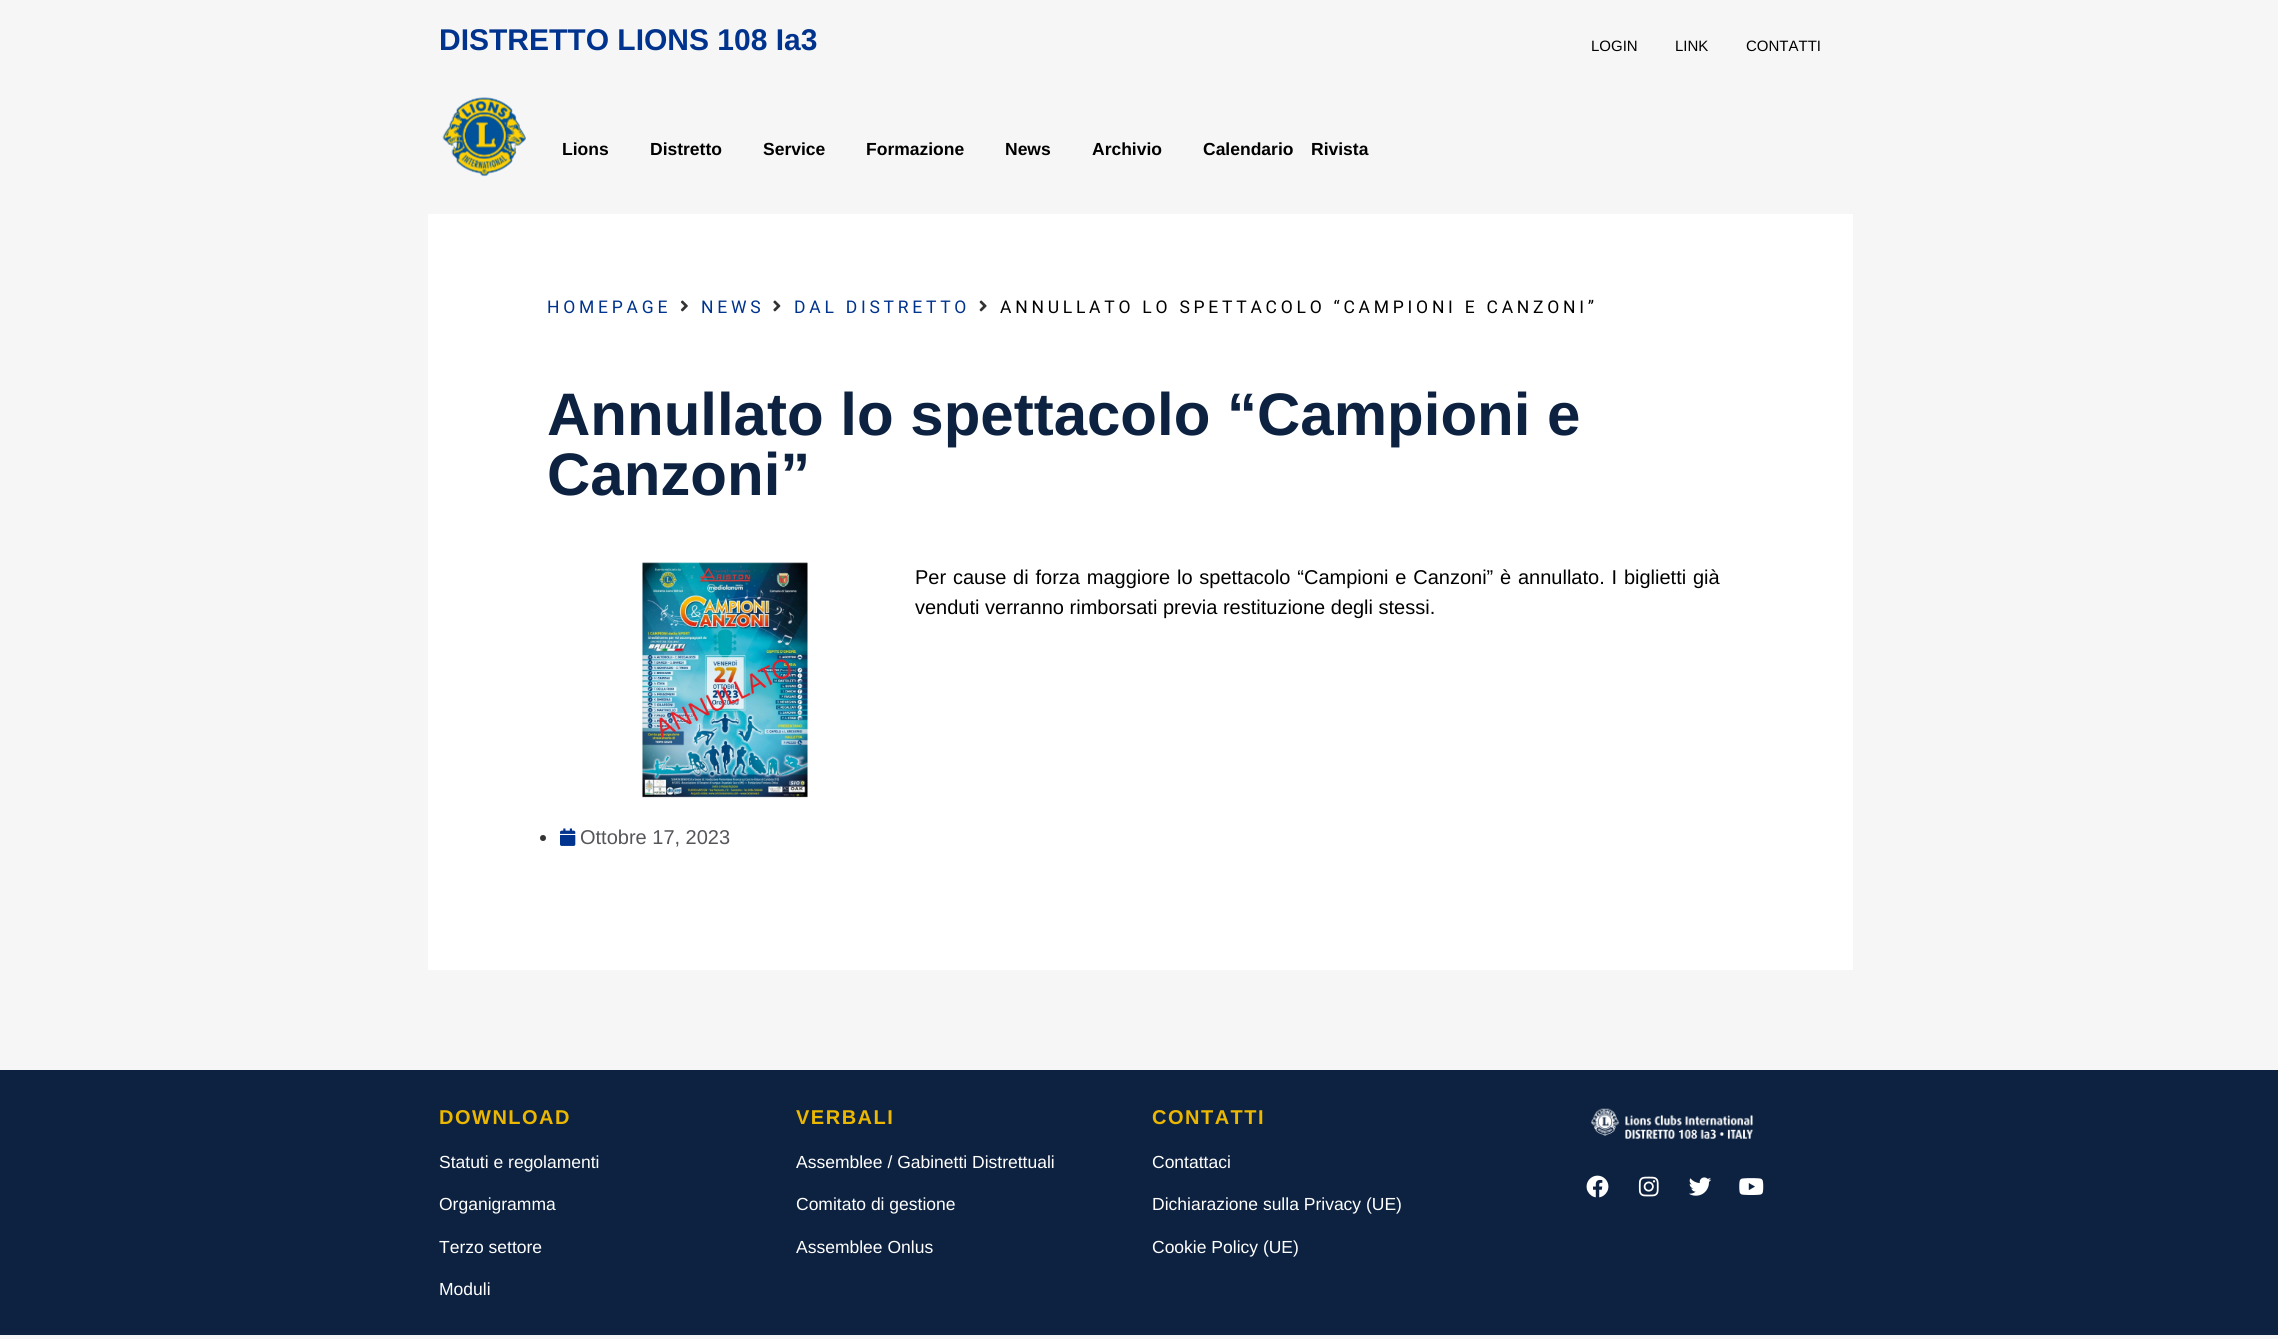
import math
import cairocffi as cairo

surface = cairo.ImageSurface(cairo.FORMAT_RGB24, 2278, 1339)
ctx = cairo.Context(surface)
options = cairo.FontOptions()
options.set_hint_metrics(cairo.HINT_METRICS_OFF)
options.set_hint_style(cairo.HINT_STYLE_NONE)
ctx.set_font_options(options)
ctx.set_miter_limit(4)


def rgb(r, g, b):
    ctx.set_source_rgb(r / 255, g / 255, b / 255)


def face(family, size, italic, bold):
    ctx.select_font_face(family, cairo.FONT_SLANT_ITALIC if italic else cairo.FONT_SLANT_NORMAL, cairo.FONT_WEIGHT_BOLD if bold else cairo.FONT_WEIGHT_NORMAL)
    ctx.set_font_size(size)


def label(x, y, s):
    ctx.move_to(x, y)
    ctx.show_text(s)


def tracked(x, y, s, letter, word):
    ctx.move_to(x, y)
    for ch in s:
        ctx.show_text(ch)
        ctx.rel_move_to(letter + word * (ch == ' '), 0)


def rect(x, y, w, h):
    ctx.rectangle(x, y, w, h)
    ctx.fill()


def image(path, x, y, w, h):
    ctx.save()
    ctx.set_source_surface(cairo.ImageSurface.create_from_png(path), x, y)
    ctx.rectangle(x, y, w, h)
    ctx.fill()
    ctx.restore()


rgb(246, 246, 246)
ctx.paint()
face('Liberation Sans', 30, 0, 1)
rgb(0, 51, 141)
label(439, 50, 'DISTRETTO LIONS 108 Ia3')
face('Liberation Sans', 15, 0, 0)
rgb(0, 0, 0)
label(1591, 51, 'LOGIN')
label(1675, 51, 'LINK')
label(1746, 51, 'CONTATTI')
image('image0.png', 442, 97, 84, 80)
face('Liberation Sans', 17.5, 0, 1)
label(562, 155, 'Lions')
label(650, 155, 'Distretto')
label(763, 155, 'Service')
label(866, 155, 'Formazione')
label(1005, 155, 'News')
label(1092, 155, 'Archivio')
label(1203, 155, 'Calendario')
label(1311, 155, 'Rivista')
rgb(255, 255, 255)
rect(428, 214, 1425, 756)
face('Roboto', 17.5, 0, 0)
rgb(0, 51, 141)
tracked(547, 313, 'HOMEPAGE', 3.75, 0)
image('image1.png', 680, 300, 8, 12)
tracked(701, 313, 'NEWS', 3.75, 0)
image('image2.png', 773, 300, 8, 12)
tracked(794, 313, 'DAL DISTRETTO', 3.75, 0)
image('image3.png', 979, 300, 8, 12)
rgb(0, 0, 0)
tracked(1000, 313, 'ANNULLATO LO SPETTACOLO “CAMPIONI E CANZONI”', 3.75, 0)
face('Liberation Sans', 60, 0, 1)
rgb(13, 34, 64)
label(547, 435, 'Annullato lo spettacolo “Campioni e')
label(547, 495, 'Canzoni”')
face('Liberation Sans', 20, 0, 0)
rgb(0, 0, 0)
tracked(915, 584, 'Per cause di forza maggiore lo spettacolo “Campioni e Canzoni” è annullato. I biglietti già', 0, 1.25)
label(915, 614, 'venduti verranno rimborsati previa restituzione degli stessi.')
image('image4.png', 642, 562, 166, 236)
rgb(51, 51, 51)
ctx.arc(543, 838, 3, 0, 2 * math.pi)
ctx.fill()
image('image5.png', 560, 828, 16, 18)
rgb(85, 86, 90)
label(580, 844, 'Ottobre 17, 2023')
rgb(13, 34, 64)
rect(0, 1070, 2278, 265)
face('Liberation Sans', 20, 0, 1)
rgb(235, 183, 0)
tracked(439, 1124, 'DOWNLOAD', 1.5, 0)
face('Liberation Sans', 17.5, 0, 0)
rgb(255, 255, 255)
label(439, 1168, 'Statuti e regolamenti')
label(439, 1210, 'Organigramma')
label(439, 1253, 'Terzo settore')
label(439, 1295, 'Moduli')
face('Liberation Sans', 20, 0, 1)
rgb(235, 183, 0)
tracked(796, 1124, 'VERBALI', 1.5, 0)
face('Liberation Sans', 17.5, 0, 0)
rgb(255, 255, 255)
label(796, 1168, 'Assemblee / Gabinetti Distrettuali')
label(796, 1210, 'Comitato di gestione')
label(796, 1253, 'Assemblee Onlus')
face('Liberation Sans', 20, 0, 1)
rgb(235, 183, 0)
tracked(1152, 1124, 'CONTATTI', 1.5, 0)
face('Liberation Sans', 17.5, 0, 0)
rgb(255, 255, 255)
label(1152, 1168, 'Contattaci')
label(1152, 1210, 'Dichiarazione sulla Privacy (UE)')
label(1152, 1253, 'Cookie Policy (UE)')
image('image6.png', 1591, 1108, 162, 31)
image('image7.png', 1586, 1175, 23, 23)
image('image8.png', 1638, 1176, 21, 21)
image('image9.png', 1689, 1177, 23, 19)
image('image10.png', 1739, 1178, 25, 17)
surface.write_to_png('render.png')
